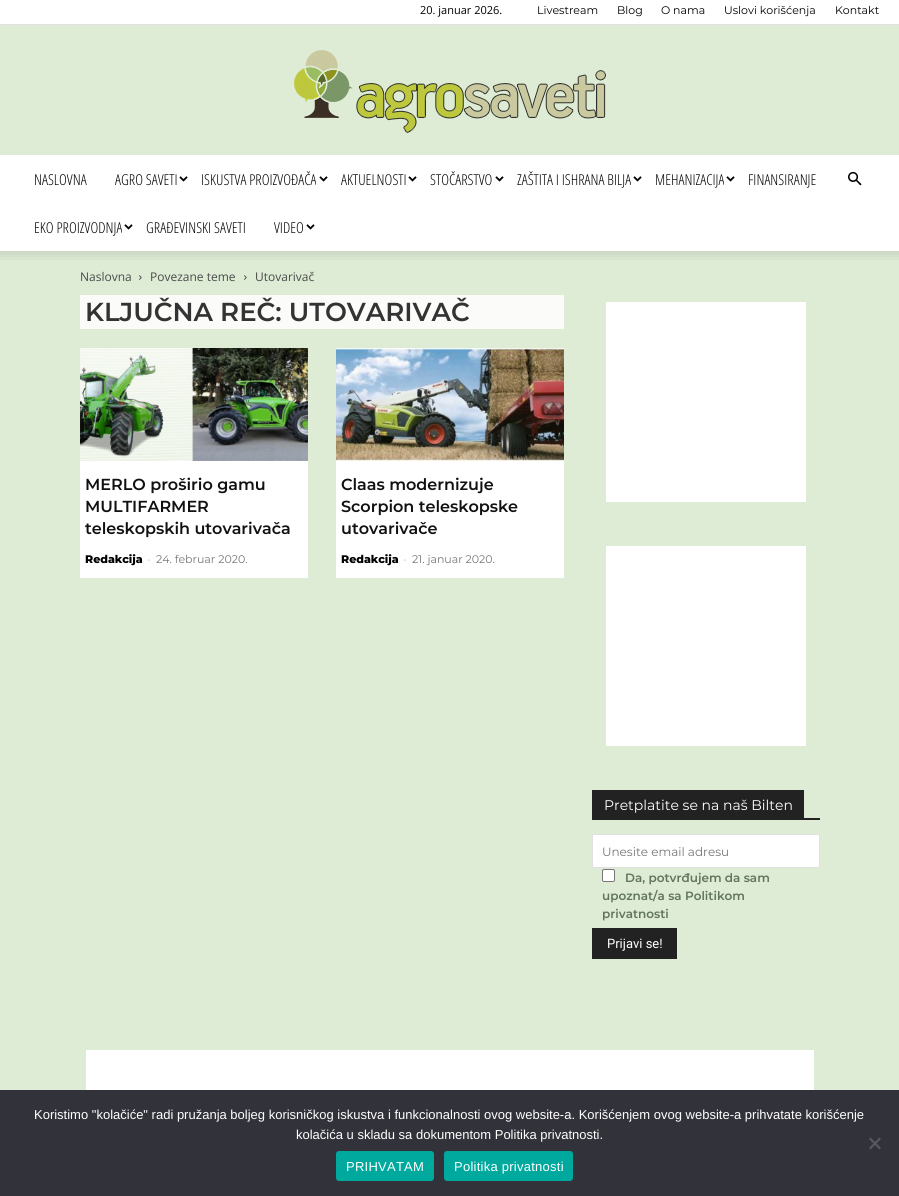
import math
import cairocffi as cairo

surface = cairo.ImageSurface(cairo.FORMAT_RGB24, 899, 1196)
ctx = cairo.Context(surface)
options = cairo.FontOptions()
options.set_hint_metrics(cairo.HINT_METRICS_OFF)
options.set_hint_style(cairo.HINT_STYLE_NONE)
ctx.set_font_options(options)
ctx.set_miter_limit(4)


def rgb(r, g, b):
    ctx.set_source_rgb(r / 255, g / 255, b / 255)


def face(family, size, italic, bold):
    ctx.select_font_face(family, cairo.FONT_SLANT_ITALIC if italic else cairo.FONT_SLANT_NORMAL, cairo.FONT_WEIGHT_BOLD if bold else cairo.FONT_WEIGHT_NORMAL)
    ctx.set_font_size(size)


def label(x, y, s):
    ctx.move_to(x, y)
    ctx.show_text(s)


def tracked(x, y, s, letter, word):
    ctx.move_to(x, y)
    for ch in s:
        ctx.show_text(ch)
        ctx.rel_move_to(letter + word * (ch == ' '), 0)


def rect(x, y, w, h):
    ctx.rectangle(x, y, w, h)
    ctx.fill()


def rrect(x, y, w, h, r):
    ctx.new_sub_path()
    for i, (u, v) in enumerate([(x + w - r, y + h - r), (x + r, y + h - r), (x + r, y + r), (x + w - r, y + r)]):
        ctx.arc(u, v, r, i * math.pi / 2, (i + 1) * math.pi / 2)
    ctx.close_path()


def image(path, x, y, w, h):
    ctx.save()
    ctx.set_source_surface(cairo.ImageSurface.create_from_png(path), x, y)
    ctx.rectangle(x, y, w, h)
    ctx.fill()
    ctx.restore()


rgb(222, 235, 213)
ctx.paint()
rgb(255, 255, 255)
rect(0, 0, 899, 24)
rgb(224, 224, 224)
rect(0, 24, 899, 1)
face('Open Sans', 11, 0, 0)
rgb(0, 0, 0)
label(420, 14, '20. januar 2026.')
face('Montserrat', 11, 0, 0)
label(537, 14, 'Livestream')
label(617, 14, 'Blog')
label(661, 14, 'O nama')
label(724, 14, 'Uslovi korišćenja')
label(835, 14, 'Kontakt')
image('image0.png', 294, 50, 312, 83)
rgb(255, 255, 255)
rect(0, 155, 899, 96)
face('Open Sans Condensed Light', 15, 0, 0)
rgb(0, 0, 0)
label(34, 185, 'NASLOVNA')
label(115, 185, 'AGRO SAVETI')
image('image1.png', 179, 176, 9, 6)
label(201, 185, 'ISKUSTVA PROIZVOĐAČA')
image('image1.png', 319, 176, 9, 6)
label(341, 185, 'AKTUELNOSTI')
image('image1.png', 408, 176, 9, 6)
label(430, 185, 'STOČARSTVO')
image('image1.png', 495, 176, 9, 6)
label(517, 185, 'ZAŠTITA I ISHRANA BILJA')
image('image1.png', 633, 176, 9, 6)
label(655, 185, 'MEHANIZACIJA')
image('image1.png', 726, 176, 9, 6)
label(748, 185, 'FINANSIRANJE')
label(34, 233, 'EKO PROIZVODNJA')
image('image1.png', 124, 224, 9, 6)
label(146, 233, 'GRAĐEVINSKI SAVETI')
label(274, 233, 'VIDEO')
image('image1.png', 306, 224, 9, 6)
image('image2.png', 848, 171, 14, 15)
image('image3.png', 0, 251, 899, 9)
face('Open Sans', 12, 0, 0)
rgb(75, 75, 75)
label(80, 281, 'Naslovna')
image('image4.png', 139, 275, 3, 5)
label(150, 281, 'Povezane teme')
image('image4.png', 244, 275, 3, 5)
label(255, 281, 'Utovarivač')
rgb(251, 252, 250)
rect(80, 295, 484, 34)
face('Montserrat SemiBold', 26, 0, 0)
rgb(51, 51, 51)
label(85, 321, 'KLJUČNA REČ: UTOVARIVAČ')
rgb(255, 255, 255)
rect(80, 461, 228, 117)
image('image5.png', 80, 348, 228, 113)
face('Montserrat SemiBold', 16, 0, 0)
rgb(17, 17, 17)
label(85, 490, 'MERLO proširio gamu')
label(85, 512, 'MULTIFARMER')
label(85, 534, 'teleskopskih utovarivača')
face('Montserrat ExtraBold', 11, 0, 0)
rgb(0, 0, 0)
label(85, 563, 'Redakcija')
face('Open Sans', 11, 0, 0)
rgb(204, 204, 204)
label(147, 563, '-')
face('Montserrat', 11, 0, 0)
rgb(118, 118, 118)
label(156, 563, '24. februar 2020.')
rgb(255, 255, 255)
rect(336, 461, 228, 117)
image('image6.png', 336, 348, 228, 113)
face('Montserrat SemiBold', 16, 0, 0)
rgb(17, 17, 17)
label(341, 490, 'Claas modernizuje')
label(341, 512, 'Scorpion teleskopske')
label(341, 534, 'utovarivače')
face('Montserrat ExtraBold', 11, 0, 0)
rgb(0, 0, 0)
label(341, 563, 'Redakcija')
face('Open Sans', 11, 0, 0)
rgb(204, 204, 204)
label(403, 563, '-')
face('Montserrat', 11, 0, 0)
rgb(118, 118, 118)
label(412, 563, '21. januar 2020.')
rgb(255, 255, 255)
rect(606, 302, 200, 200)
rect(606, 546, 200, 200)
rgb(34, 34, 34)
rect(592, 818, 228, 2)
rect(592, 790, 212, 28)
face('Montserrat', 14, 0, 0)
rgb(255, 255, 255)
label(604, 810, 'Pretplatite se na naš Bilten')
ctx.rectangle(592.5, 834.5, 227, 33)
ctx.fill_preserve()
rgb(225, 225, 225)
ctx.set_line_width(1)
ctx.stroke()
face('Montserrat', 12, 0, 0)
rgb(118, 118, 118)
label(602, 856, 'Unesite email adresu')
rgb(255, 255, 255)
rrect(602.5, 869.5, 12, 12, 1.5)
ctx.fill_preserve()
rgb(118, 118, 118)
ctx.stroke()
face('Montserrat SemiBold', 12, 0, 0)
rgb(97, 117, 92)
label(625, 882, 'Da, potvrđujem da sam')
label(602, 900, 'upoznat/a sa Politikom')
label(602, 918, 'privatnosti')
rgb(34, 34, 34)
rect(592, 928, 85, 31)
face('Roboto', 13, 0, 0)
rgb(255, 255, 255)
label(607, 948, 'Prijavi se!')
rect(86, 1050, 728, 40)
rgb(50, 50, 58)
rect(0, 1090, 899, 106)
face('Liberation Sans', 13, 0, 0)
rgb(255, 255, 255)
label(34, 1119, 'Koristimo "kolačiće" radi pružanja boljeg korisničkog iskustva i funkcionalnosti ovog website-a. Korišćenjem ovog website-a prihvatate korišćenje')
label(296, 1139, 'kolačića u skladu sa dokumentom Politika privatnosti.')
rgb(89, 89, 93)
ctx.new_path()
ctx.move_to(879.5, 1137.5)
ctx.line_to(881, 1139)
ctx.line_to(870.5, 1149.5)
ctx.line_to(869, 1148)
ctx.close_path()
ctx.fill()
ctx.new_path()
ctx.move_to(869, 1139)
ctx.line_to(870.5, 1137.5)
ctx.line_to(881, 1148)
ctx.line_to(879.5, 1149.5)
ctx.close_path()
ctx.fill()
rgb(0, 169, 157)
rrect(336, 1151, 98, 30, 3)
ctx.fill()
rgb(255, 255, 255)
tracked(346, 1171, 'PRIHVATAM', 0.25, 0)
rgb(0, 169, 157)
rrect(444, 1151, 129, 30, 3)
ctx.fill()
rgb(255, 255, 255)
tracked(454, 1171, 'Politika privatnosti', 0.25, 0)
surface.write_to_png('render.png')
